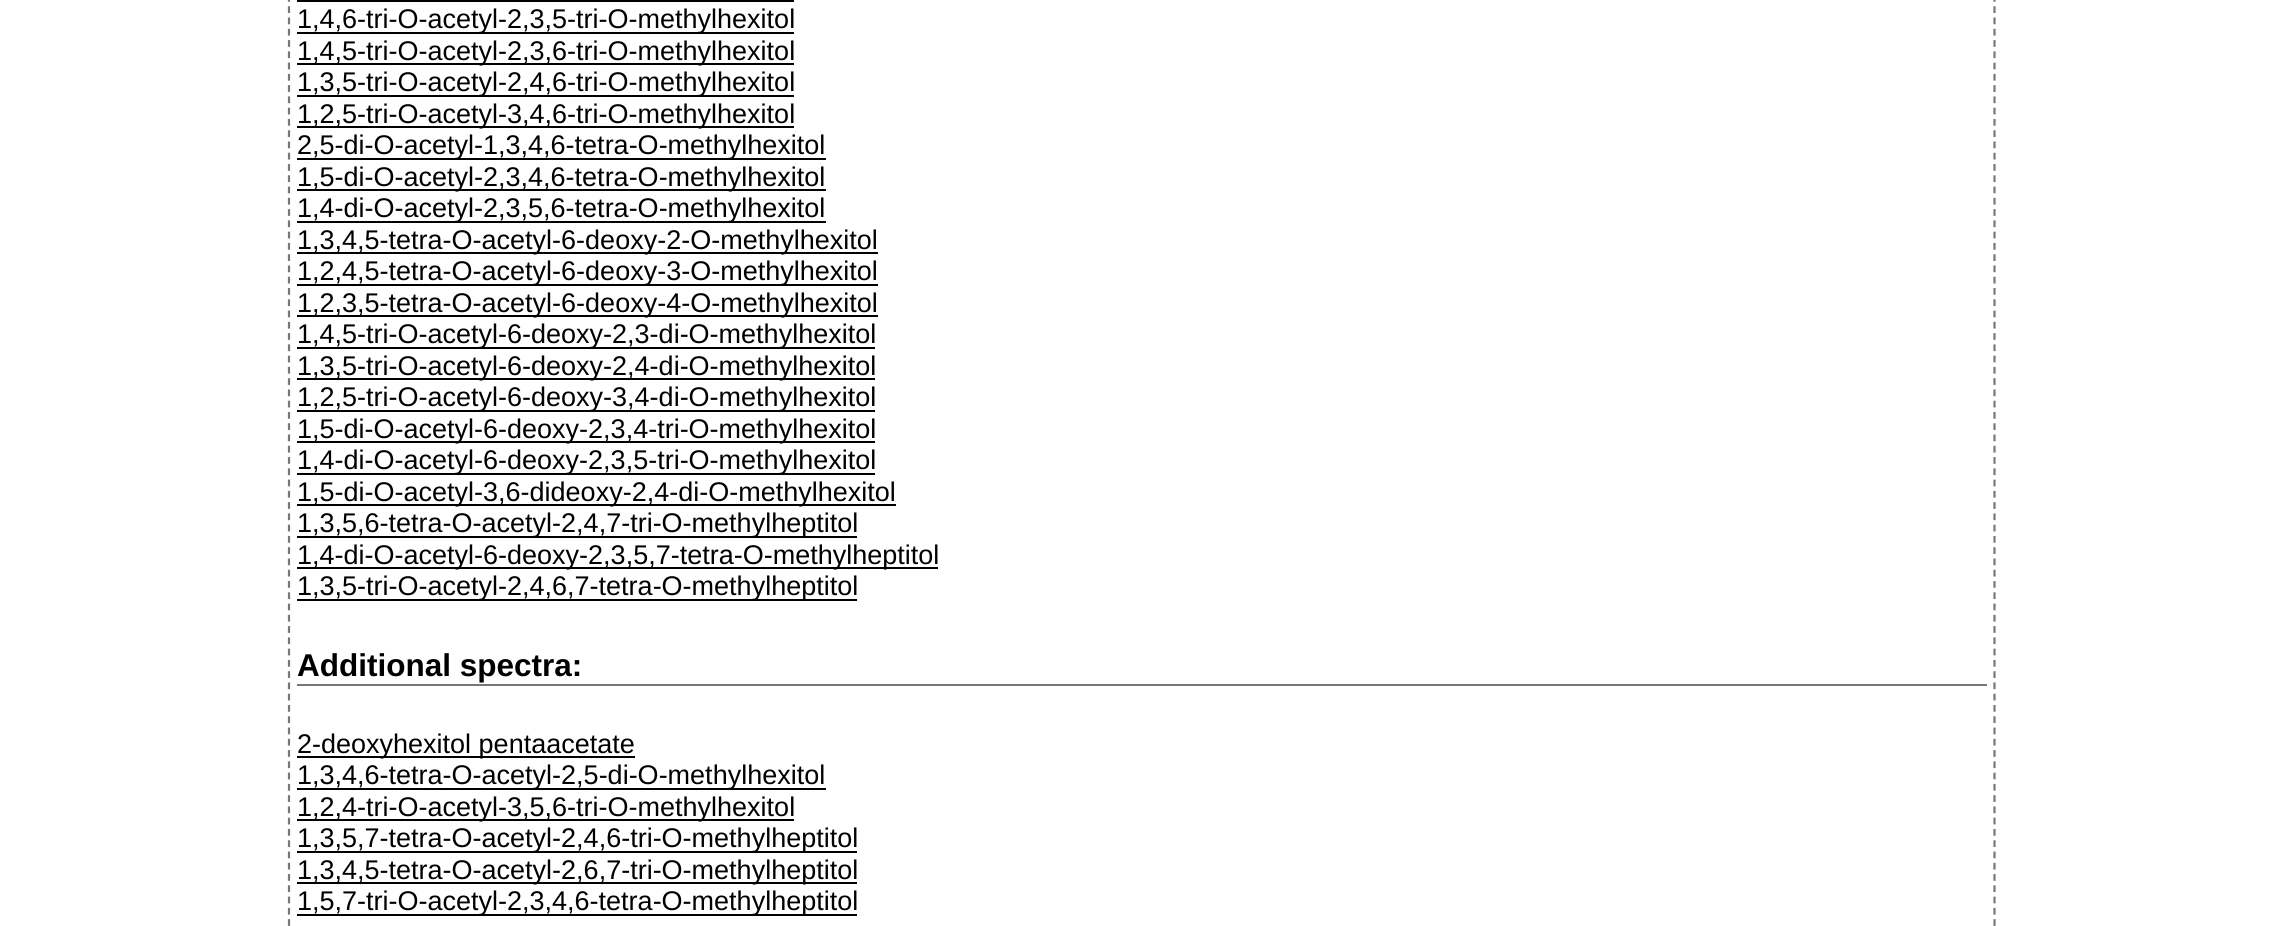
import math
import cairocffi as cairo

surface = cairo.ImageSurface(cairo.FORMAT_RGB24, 2283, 926)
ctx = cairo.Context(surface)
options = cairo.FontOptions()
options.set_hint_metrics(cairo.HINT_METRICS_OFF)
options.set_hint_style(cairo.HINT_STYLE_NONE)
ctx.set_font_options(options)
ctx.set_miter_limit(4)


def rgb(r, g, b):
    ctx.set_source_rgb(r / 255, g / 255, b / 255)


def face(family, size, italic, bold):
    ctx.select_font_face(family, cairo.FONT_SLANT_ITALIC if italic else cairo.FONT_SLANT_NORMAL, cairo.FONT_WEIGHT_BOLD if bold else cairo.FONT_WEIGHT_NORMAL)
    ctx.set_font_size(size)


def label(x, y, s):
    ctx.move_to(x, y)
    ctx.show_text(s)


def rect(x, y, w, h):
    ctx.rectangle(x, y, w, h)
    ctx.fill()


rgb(255, 255, 255)
ctx.paint()
ctx.new_path()
ctx.move_to(289, -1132)
ctx.line_to(289, 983)
rgb(119, 119, 119)
ctx.set_line_width(2.2)
ctx.set_dash([6.75, 4.52])
ctx.stroke()
rgb(0, 0, 0)
rect(297, 0, 497, 2)
rect(297, 32, 497, 2)
face('Liberation Sans', 27, 0, 0)
label(297, 28, '1,4,6-tri-O-acetyl-2,3,5-tri-O-methylhexitol')
rect(297, 63, 497, 2)
label(297, 60, '1,4,5-tri-O-acetyl-2,3,6-tri-O-methylhexitol')
rect(297, 95, 497, 2)
label(297, 91, '1,3,5-tri-O-acetyl-2,4,6-tri-O-methylhexitol')
rect(297, 126, 497, 2)
label(297, 123, '1,2,5-tri-O-acetyl-3,4,6-tri-O-methylhexitol')
rect(297, 158, 529, 2)
label(297, 154, '2,5-di-O-acetyl-1,3,4,6-tetra-O-methylhexitol')
rect(297, 189, 529, 2)
label(297, 186, '1,5-di-O-acetyl-2,3,4,6-tetra-O-methylhexitol')
rect(297, 221, 529, 2)
label(297, 217, '1,4-di-O-acetyl-2,3,5,6-tetra-O-methylhexitol')
rect(297, 252, 581, 2)
label(297, 249, '1,3,4,5-tetra-O-acetyl-6-deoxy-2-O-methylhexitol')
rect(297, 284, 581, 2)
label(297, 280, '1,2,4,5-tetra-O-acetyl-6-deoxy-3-O-methylhexitol')
rect(297, 315, 581, 2)
label(297, 312, '1,2,3,5-tetra-O-acetyl-6-deoxy-4-O-methylhexitol')
rect(297, 347, 578, 2)
label(297, 343, '1,4,5-tri-O-acetyl-6-deoxy-2,3-di-O-methylhexitol')
rect(297, 378, 578, 2)
label(297, 375, '1,3,5-tri-O-acetyl-6-deoxy-2,4-di-O-methylhexitol')
rect(297, 410, 578, 2)
label(297, 406, '1,2,5-tri-O-acetyl-6-deoxy-3,4-di-O-methylhexitol')
rect(297, 441, 578, 2)
label(297, 438, '1,5-di-O-acetyl-6-deoxy-2,3,4-tri-O-methylhexitol')
rect(297, 473, 578, 2)
label(297, 469, '1,4-di-O-acetyl-6-deoxy-2,3,5-tri-O-methylhexitol')
rect(297, 504, 599, 2)
label(297, 501, '1,5-di-O-acetyl-3,6-dideoxy-2,4-di-O-methylhexitol')
rect(297, 536, 560, 2)
label(297, 532, '1,3,5,6-tetra-O-acetyl-2,4,7-tri-O-methylheptitol')
rect(297, 567, 641, 2)
label(297, 564, '1,4-di-O-acetyl-6-deoxy-2,3,5,7-tetra-O-methylheptitol')
rect(297, 599, 560, 2)
label(297, 595, '1,3,5-tri-O-acetyl-2,4,6,7-tetra-O-methylheptitol')
rgb(119, 119, 119)
rect(297, 684, 1690, 2)
face('Liberation Sans', 31.5, 0, 1)
rgb(0, 0, 0)
label(297, 676, 'Additional spectra:')
rect(297, 756, 338, 2)
face('Liberation Sans', 27, 0, 0)
label(297, 753, '2-deoxyhexitol pentaacetate')
rect(297, 788, 529, 2)
label(297, 784, '1,3,4,6-tetra-O-acetyl-2,5-di-O-methylhexitol')
rect(297, 819, 497, 2)
label(297, 816, '1,2,4-tri-O-acetyl-3,5,6-tri-O-methylhexitol')
rect(297, 851, 560, 2)
label(297, 847, '1,3,5,7-tetra-O-acetyl-2,4,6-tri-O-methylheptitol')
rect(297, 882, 560, 2)
label(297, 879, '1,3,4,5-tetra-O-acetyl-2,6,7-tri-O-methylheptitol')
rect(297, 914, 560, 2)
label(297, 910, '1,5,7-tri-O-acetyl-2,3,4,6-tetra-O-methylheptitol')
ctx.new_path()
ctx.move_to(1994.5, -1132)
ctx.line_to(1994.5, 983)
rgb(119, 119, 119)
ctx.stroke()
surface.write_to_png('render.png')
